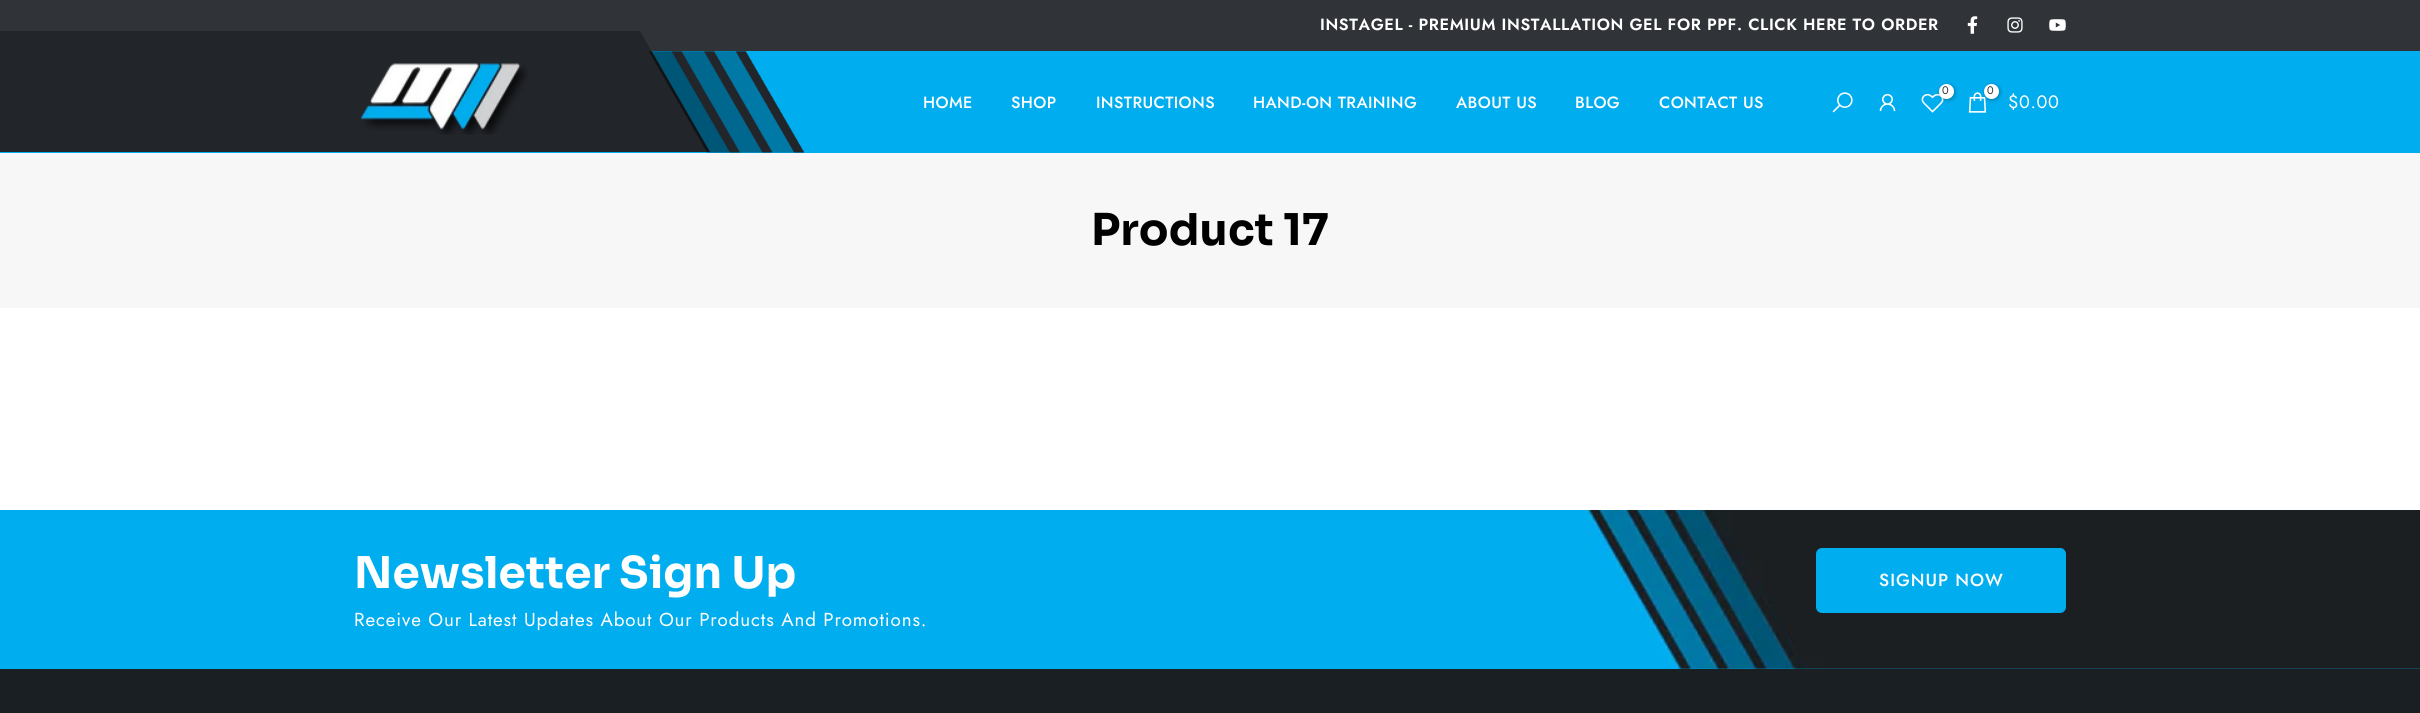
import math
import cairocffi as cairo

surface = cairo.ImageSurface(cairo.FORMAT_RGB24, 2420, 713)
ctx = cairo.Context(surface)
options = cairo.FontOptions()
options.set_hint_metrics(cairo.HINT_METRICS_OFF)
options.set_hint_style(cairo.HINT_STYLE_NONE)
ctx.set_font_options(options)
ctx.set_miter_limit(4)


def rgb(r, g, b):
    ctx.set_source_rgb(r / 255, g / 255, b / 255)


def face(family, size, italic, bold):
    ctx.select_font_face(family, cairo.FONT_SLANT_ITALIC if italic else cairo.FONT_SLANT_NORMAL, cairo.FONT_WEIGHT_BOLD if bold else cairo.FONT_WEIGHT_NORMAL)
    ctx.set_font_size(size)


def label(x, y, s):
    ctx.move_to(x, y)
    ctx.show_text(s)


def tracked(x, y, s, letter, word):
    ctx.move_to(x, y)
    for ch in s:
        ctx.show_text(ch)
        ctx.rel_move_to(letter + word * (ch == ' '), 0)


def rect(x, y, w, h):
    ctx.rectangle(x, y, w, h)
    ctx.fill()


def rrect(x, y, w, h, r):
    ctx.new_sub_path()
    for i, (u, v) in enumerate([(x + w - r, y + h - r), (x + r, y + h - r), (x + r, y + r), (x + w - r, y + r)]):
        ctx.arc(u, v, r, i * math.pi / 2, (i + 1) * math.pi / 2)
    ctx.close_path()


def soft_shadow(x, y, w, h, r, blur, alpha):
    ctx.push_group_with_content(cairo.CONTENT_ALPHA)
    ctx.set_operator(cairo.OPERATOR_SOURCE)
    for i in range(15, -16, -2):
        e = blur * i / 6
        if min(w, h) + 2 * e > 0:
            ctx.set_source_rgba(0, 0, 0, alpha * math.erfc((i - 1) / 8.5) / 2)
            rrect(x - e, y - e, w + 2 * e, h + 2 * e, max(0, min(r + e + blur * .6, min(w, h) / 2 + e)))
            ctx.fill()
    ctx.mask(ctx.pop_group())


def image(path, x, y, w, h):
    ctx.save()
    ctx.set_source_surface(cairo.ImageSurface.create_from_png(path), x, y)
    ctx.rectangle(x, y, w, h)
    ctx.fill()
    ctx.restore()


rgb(255, 255, 255)
ctx.paint()
rgb(48, 51, 56)
rect(0, 0, 2420, 51)
face('Jost SemiBold', 16.25, 0, 0)
rgb(255, 255, 255)
tracked(1320, 30, 'INSTAGEL - PREMIUM INSTALLATION GEL FOR PPF. CLICK HERE TO ORDER', 0.62, 0)
image('image0.png', 1967, 16, 11, 18)
image('image1.png', 2007, 17, 16, 16)
image('image2.png', 2049, 19, 17, 12)
rgb(0, 173, 239)
rect(0, 51, 2420, 102)
rgb(34, 37, 42)
ctx.new_path()
ctx.move_to(-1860, 31)
ctx.line_to(640, 31)
ctx.line_to(710, 152)
ctx.line_to(-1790, 152)
ctx.close_path()
ctx.fill()
image('image3.png', 649, 51, 156, 102)
image('image4.png', 360, 63, 168, 72)
face('Jost Medium', 16.25, 0, 0)
rgb(255, 255, 255)
tracked(923, 108, 'HOME', 0.4, 0)
tracked(1011, 108, 'SHOP', 0.4, 0)
tracked(1096, 108, 'INSTRUCTIONS', 0.4, 0)
tracked(1253, 108, 'HAND-ON TRAINING', 0.4, 0)
tracked(1456, 108, 'ABOUT US', 0.4, 0)
tracked(1575, 108, 'BLOG', 0.4, 0)
tracked(1659, 108, 'CONTACT US', 0.4, 0)
image('image5.png', 1832, 92, 21, 21)
image('image6.png', 1879, 93, 17, 19)
image('image7.png', 1921, 93, 23, 20)
rgb(0, 0, 0)
soft_shadow(1940, 85, 15, 15, 7.5, 2, 0.3)
rgb(255, 255, 255)
ctx.arc(1946.5, 91.5, 7.5, 0, 2 * math.pi)
ctx.fill()
face('Jost', 11, 0, 0)
rgb(48, 51, 56)
label(1942, 94, '0')
image('image8.png', 1968, 92, 19, 21)
rgb(0, 0, 0)
soft_shadow(1985, 85, 15, 15, 7.5, 2, 0.3)
rgb(255, 255, 255)
ctx.arc(1991.5, 91.5, 7.5, 0, 2 * math.pi)
ctx.fill()
rgb(48, 51, 56)
label(1987, 94, '0')
face('Jost', 18, 0, 0)
rgb(255, 255, 255)
tracked(2008, 108, '$0.00', 0.62, 0)
rgb(247, 247, 247)
rect(0, 153, 2420, 155)
face('Sora', 43.75, 0, 1)
rgb(0, 0, 0)
tracked(1091, 245, 'Product 17', 0.1, 0)
rgb(0, 173, 239)
rect(0, 510, 2420, 159)
image('image9.png', 1586, 510, 834, 159)
rgb(255, 255, 255)
tracked(354, 588, 'Newsletter Sign Up', 0.1, 0)
face('Jost', 18.75, 0, 0)
tracked(354, 626, 'Receive Our Latest Updates About Our Products And Promotions.', 0.88, 0)
rgb(0, 173, 239)
rrect(1816, 548, 250, 65, 6)
ctx.fill()
face('Jost Medium', 17.5, 0, 0)
rgb(255, 255, 255)
tracked(1879, 586, 'SIGNUP NOW', 1, 0)
rgb(26, 31, 35)
rect(0, 669, 2420, 44)
surface.write_to_png('render.png')
